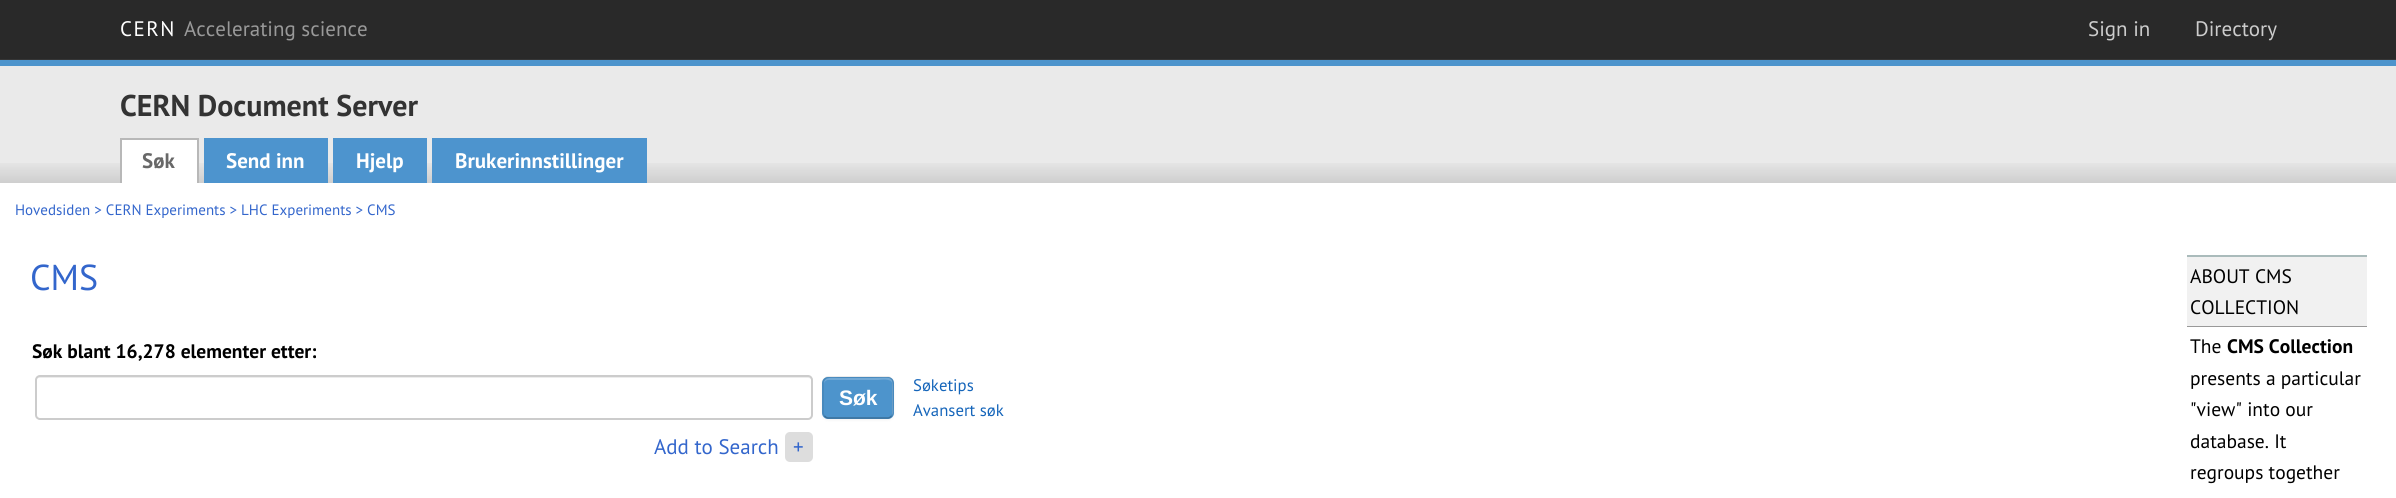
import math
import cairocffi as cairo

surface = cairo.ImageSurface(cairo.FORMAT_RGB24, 2396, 498)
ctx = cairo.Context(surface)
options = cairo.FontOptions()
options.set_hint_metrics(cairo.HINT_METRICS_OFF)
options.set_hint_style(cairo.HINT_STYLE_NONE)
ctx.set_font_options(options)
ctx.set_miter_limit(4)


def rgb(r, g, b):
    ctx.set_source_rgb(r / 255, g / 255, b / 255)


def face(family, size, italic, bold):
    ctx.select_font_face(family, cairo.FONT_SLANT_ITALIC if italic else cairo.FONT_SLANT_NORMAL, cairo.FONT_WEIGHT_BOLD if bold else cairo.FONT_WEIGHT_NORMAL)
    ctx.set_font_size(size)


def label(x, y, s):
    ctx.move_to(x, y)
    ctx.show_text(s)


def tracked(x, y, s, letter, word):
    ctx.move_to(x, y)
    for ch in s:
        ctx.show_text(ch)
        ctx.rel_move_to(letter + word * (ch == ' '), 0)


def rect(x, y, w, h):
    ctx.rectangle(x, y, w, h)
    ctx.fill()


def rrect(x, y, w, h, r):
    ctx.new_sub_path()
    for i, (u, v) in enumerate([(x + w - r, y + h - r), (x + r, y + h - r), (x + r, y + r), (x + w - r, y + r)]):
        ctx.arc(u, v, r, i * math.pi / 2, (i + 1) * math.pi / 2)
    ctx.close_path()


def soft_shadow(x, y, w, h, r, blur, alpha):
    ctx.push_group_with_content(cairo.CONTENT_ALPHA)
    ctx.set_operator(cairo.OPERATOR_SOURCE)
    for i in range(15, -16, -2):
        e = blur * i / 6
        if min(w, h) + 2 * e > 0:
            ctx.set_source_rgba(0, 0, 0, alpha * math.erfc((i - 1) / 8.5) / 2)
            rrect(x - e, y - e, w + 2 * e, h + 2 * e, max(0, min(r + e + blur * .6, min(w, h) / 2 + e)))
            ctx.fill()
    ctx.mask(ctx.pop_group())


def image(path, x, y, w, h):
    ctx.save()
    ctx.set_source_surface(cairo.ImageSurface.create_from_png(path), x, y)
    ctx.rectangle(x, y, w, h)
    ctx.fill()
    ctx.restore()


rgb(255, 255, 255)
ctx.paint()
rgb(41, 41, 41)
rect(0, 0, 2396, 59)
rgb(53, 53, 53)
rect(0, 59, 2396, 1)
face('PT Sans', 21, 0, 0)
rgb(255, 255, 255)
tracked(120, 36, 'CERN', 1.5, 0)
rgb(153, 153, 153)
label(184, 36, 'Accelerating science')
rgb(204, 204, 204)
label(2088, 36, 'Sign in')
label(2195, 36, 'Directory')
rgb(234, 234, 234)
rect(0, 66, 2396, 117)
image('image0.png', 0, 163, 2396, 20)
rgb(77, 148, 204)
rect(0, 60, 2396, 6)
face('PT Sans', 30, 0, 1)
rgb(51, 51, 51)
label(120, 116, 'CERN Document Server')
rgb(255, 255, 255)
rect(122, 140, 75, 43)
rgb(184, 184, 184)
rect(120, 138, 78, 2)
rect(197, 138, 2, 45)
rect(120, 138, 2, 45)
face('PT Sans', 21, 0, 1)
rgb(104, 104, 104)
label(142, 168, 'Søk')
rgb(77, 148, 206)
rect(204, 138, 124, 45)
rgb(255, 255, 255)
label(226, 168, 'Send inn')
rgb(77, 148, 206)
rect(333, 138, 94, 45)
rgb(255, 255, 255)
label(356, 168, 'Hjelp')
rgb(77, 148, 206)
rect(432, 138, 215, 45)
rgb(255, 255, 255)
label(455, 168, 'Brukerinnstillinger')
face('PT Sans', 15, 0, 0)
rgb(51, 102, 204)
label(15, 215, 'Hovedsiden > CERN Experiments > LHC Experiments > CMS')
face('PT Sans', 36, 0, 0)
label(30, 290, 'CMS')
face('PT Sans', 19.5, 0, 1)
rgb(0, 0, 0)
label(32, 358, 'Søk blant 16,278 elementer etter:')
rgb(236, 236, 236)
ctx.new_path()
ctx.move_to(39, 378)
ctx.line_to(808, 378)
ctx.curve_to(810, 378, 812, 379, 812, 381)
ctx.curve_to(812, 379, 811, 377, 809, 377)
ctx.line_to(39, 377)
ctx.curve_to(37, 377, 36, 379, 36, 381)
ctx.curve_to(36, 379, 37, 378, 39, 378)
ctx.close_path()
ctx.fill()
rrect(36, 376, 776, 43, 4)
rgb(204, 204, 204)
ctx.stroke()
rgb(0, 0, 0)
soft_shadow(822, 378, 72, 42, 6, 1.5, 0.05)
rgb(77, 148, 204)
rrect(822, 377, 72, 42, 6)
ctx.fill()
rgb(113, 169, 214)
ctx.new_path()
ctx.move_to(828, 380)
ctx.line_to(878, 380)
ctx.curve_to(880, 380, 891, 378, 892, 383)
ctx.line_to(892, 415)
ctx.curve_to(894, 413, 893, 410, 893, 407)
ctx.line_to(893, 398)
ctx.curve_to(893, 373, 895, 378, 868, 378)
ctx.line_to(839, 378)
ctx.curve_to(833, 378, 824, 376, 824, 384)
ctx.curve_to(824, 382, 826, 380, 828, 380)
ctx.close_path()
ctx.fill()
ctx.new_path()
ctx.move_to(891.5, 416)
ctx.curve_to(890.5, 417, 889.5, 418, 888, 418)
ctx.line_to(828, 418)
ctx.curve_to(826.5, 418, 825.5, 417, 824.5, 416)
ctx.set_source_rgba(0, 0, 0, 0.25)
ctx.set_line_width(1.5)
ctx.stroke()
ctx.new_path()
ctx.move_to(824.5, 416)
ctx.curve_to(823.5, 415, 823, 414, 823, 412.5)
ctx.line_to(823, 382.5)
ctx.curve_to(823, 381, 823.5, 380, 824.5, 379)
ctx.curve_to(825.5, 378, 826.5, 377, 828, 377)
ctx.line_to(888, 377)
ctx.curve_to(889.5, 377, 890.5, 378, 891.5, 379)
ctx.curve_to(892.5, 380, 893, 381, 893, 382.5)
ctx.line_to(893, 412.5)
ctx.curve_to(893, 414, 892.5, 415, 891.5, 416)
ctx.set_source_rgba(0, 0, 0, 0.1)
ctx.stroke()
face('Liberation Sans', 21, 0, 1)
rgb(255, 255, 255)
label(839, 405, 'Søk')
face('PT Sans', 16.75, 0, 0)
rgb(21, 101, 186)
label(913, 391, 'Søketips')
label(913, 416, 'Avansert søk')
face('PT Sans', 21, 0, 0)
rgb(51, 102, 204)
label(654, 454, 'Add to Search')
rgb(221, 221, 221)
rrect(785, 432, 28, 30, 5)
ctx.fill()
rgb(51, 102, 204)
label(793, 454, '+')
rgb(170, 187, 187)
rect(2187, 255, 180, 2)
rgb(241, 241, 241)
rect(2187, 257, 180, 69)
rgb(153, 153, 153)
rect(2187, 326, 180, 1)
face('PT Sans', 19.5, 0, 0)
rgb(0, 0, 0)
label(2190, 283, 'ABOUT CMS')
label(2190, 314, 'COLLECTION')
label(2190, 353, 'The')
face('PT Sans', 19.5, 0, 1)
label(2227, 353, 'CMS Collection')
face('PT Sans', 19.5, 0, 0)
label(2190, 385, 'presents a particular')
label(2190, 416, '"view" into our')
label(2190, 448, 'database. It')
label(2190, 479, 'regroups together')
surface.write_to_png('render.png')
